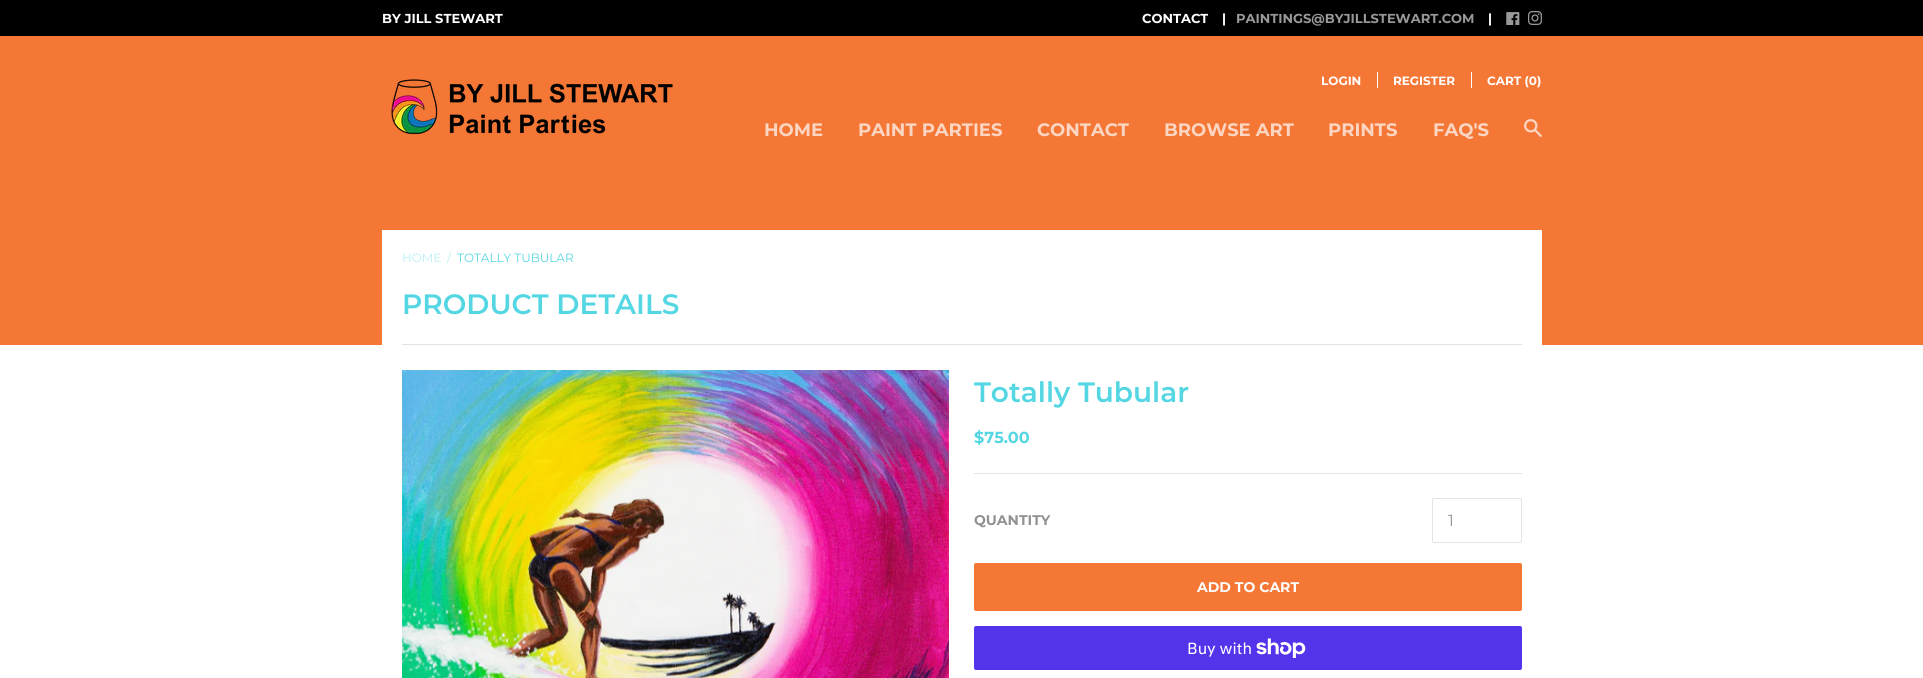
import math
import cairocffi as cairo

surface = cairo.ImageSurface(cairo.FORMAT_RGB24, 1923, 678)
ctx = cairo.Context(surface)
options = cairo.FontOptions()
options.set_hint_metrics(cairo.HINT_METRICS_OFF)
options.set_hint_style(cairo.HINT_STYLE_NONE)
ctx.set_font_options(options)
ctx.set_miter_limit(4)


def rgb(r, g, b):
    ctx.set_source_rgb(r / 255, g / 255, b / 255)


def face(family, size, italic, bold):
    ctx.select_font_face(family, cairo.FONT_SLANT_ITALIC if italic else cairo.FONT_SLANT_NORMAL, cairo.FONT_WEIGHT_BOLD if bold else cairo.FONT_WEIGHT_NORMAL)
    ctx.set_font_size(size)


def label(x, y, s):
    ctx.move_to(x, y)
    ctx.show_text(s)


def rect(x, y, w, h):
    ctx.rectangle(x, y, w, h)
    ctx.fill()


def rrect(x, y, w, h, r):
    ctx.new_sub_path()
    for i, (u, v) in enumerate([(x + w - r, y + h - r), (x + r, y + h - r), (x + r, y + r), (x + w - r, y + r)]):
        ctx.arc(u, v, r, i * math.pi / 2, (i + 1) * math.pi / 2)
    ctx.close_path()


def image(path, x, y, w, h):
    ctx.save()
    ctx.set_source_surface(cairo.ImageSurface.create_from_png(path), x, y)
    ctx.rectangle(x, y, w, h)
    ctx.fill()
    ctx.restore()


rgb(255, 255, 255)
ctx.paint()
rgb(244, 119, 53)
rect(0, 36, 1923, 309)
rgb(0, 0, 0)
rect(0, 0, 1923, 36)
face('Montserrat', 13, 0, 1)
rgb(255, 255, 255)
label(382, 23, 'BY JILL STEWART')
label(1142, 23, 'CONTACT')
label(1222, 23, '|')
rgb(153, 153, 153)
label(1236, 23, 'PAINTINGS@BYJILLSTEWART.COM')
rgb(255, 255, 255)
label(1488, 23, '|')
image('image0.png', 1506, 12, 14, 13)
image('image1.png', 1528, 11, 14, 14)
image('image2.png', 391, 79, 282, 56)
face('Montserrat', 12, 0, 1)
label(1321, 85, 'LOGIN')
rect(1377, 72, 1, 16)
label(1393, 85, 'REGISTER')
rect(1471, 72, 1, 16)
label(1487, 85, 'CART (0)')
face('Montserrat', 18, 0, 1)
rgb(252, 214, 194)
label(764, 136, 'HOME')
label(858, 136, 'PAINT PARTIES')
label(1037, 136, 'CONTACT')
label(1164, 136, 'BROWSE ART')
label(1328, 136, 'PRINTS')
label(1433, 136, 'FAQ\'S')
image('image3.png', 1524, 119, 18, 18)
rgb(255, 255, 255)
rect(382, 230, 1160, 115)
face('Montserrat', 12, 0, 0)
rgb(187, 239, 244)
label(402, 262, 'HOME')
label(447, 262, '/')
rgb(84, 215, 227)
label(457, 262, 'TOTALLY TUBULAR')
rgb(228, 228, 228)
rect(402, 344, 1120, 1)
face('Montserrat SemiBold', 28, 0, 0)
rgb(84, 215, 227)
label(402, 314, 'PRODUCT DETAILS')
image('image4.png', 402, 370, 547, 308)
rgb(228, 228, 228)
rect(974, 473, 548, 1)
rgb(84, 215, 227)
label(974, 402, 'Totally Tubular')
face('Montserrat', 16, 0, 1)
label(974, 443, '$75.00')
face('Montserrat', 14, 0, 1)
rgb(145, 145, 145)
label(974, 525, 'QUANTITY')
rrect(1432.5, 498.5, 89, 44, 1.5)
rgb(228, 228, 228)
ctx.set_line_width(1)
ctx.stroke()
face('Montserrat', 16, 0, 0)
rgb(145, 145, 145)
label(1448, 526, '1')
rgb(244, 119, 53)
rrect(974, 563, 548, 48, 2)
ctx.fill()
face('Montserrat', 14, 0, 1)
rgb(255, 255, 255)
label(1197, 592, 'ADD TO CART')
rgb(84, 51, 235)
rrect(974, 626, 548, 44, 2)
ctx.fill()
face('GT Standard', 16, 0, 0)
rgb(255, 255, 255)
label(1187, 654, 'Buy with')
image('image5.png', 1256, 638, 50, 20)
surface.write_to_png('render.png')
